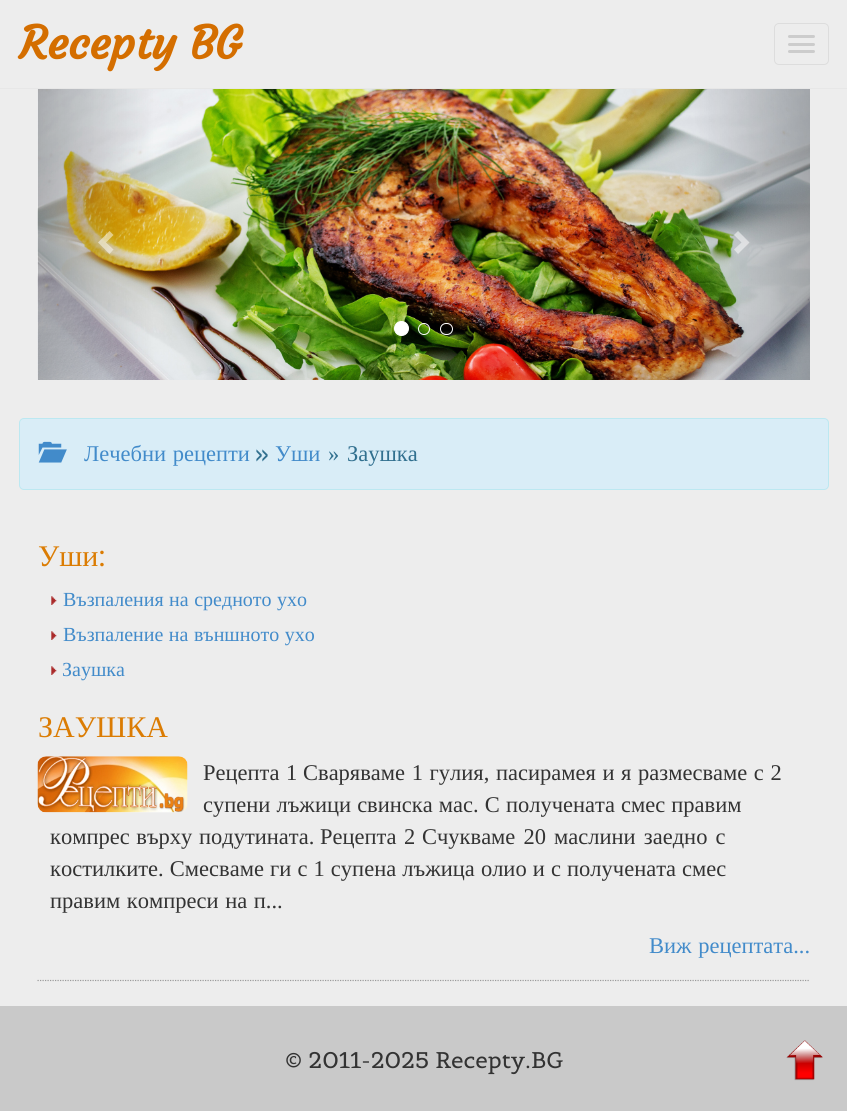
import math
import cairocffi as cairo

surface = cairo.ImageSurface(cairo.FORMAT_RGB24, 847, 1111)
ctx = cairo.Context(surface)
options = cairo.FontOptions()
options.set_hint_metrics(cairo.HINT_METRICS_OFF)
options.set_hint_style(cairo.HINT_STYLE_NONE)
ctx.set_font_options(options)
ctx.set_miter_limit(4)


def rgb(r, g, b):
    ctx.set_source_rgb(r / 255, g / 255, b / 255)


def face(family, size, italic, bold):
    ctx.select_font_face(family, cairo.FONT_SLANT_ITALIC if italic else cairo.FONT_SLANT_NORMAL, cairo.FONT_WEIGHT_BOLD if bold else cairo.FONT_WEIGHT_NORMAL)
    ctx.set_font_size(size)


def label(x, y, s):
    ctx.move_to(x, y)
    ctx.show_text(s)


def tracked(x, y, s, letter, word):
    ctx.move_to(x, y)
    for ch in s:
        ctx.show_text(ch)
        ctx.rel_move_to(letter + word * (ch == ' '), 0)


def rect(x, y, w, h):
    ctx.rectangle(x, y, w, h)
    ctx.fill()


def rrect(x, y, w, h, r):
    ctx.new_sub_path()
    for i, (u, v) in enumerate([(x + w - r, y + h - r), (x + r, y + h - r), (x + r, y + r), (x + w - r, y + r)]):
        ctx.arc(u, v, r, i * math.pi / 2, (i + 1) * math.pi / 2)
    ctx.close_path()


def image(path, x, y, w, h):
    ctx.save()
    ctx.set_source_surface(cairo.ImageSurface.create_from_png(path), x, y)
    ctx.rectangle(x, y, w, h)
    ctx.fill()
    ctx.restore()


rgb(237, 237, 237)
ctx.paint()
rgb(231, 231, 231)
rect(0, 88, 847, 1)
face('Courgette', 45, 0, 1)
rgb(212, 110, 0)
label(19, 59, 'Recepty BG')
rrect(774.5, 23.5, 54, 41, 4.5)
rgb(221, 221, 221)
ctx.set_line_width(1)
ctx.stroke()
rgb(204, 204, 204)
rrect(788, 35, 27, 3, 1.5)
ctx.fill()
rrect(788, 43, 27, 3, 1.5)
ctx.fill()
rrect(788, 50, 27, 3, 1.5)
ctx.fill()
image('image0.png', 37, 89, 773, 291)
ctx.set_source_rgba(1, 1, 1, 0.5)
ctx.new_path()
ctx.move_to(113.5, 235)
ctx.line_to(106, 242.5)
ctx.line_to(113.5, 249.5)
ctx.line_to(109.5, 254)
ctx.line_to(98, 242.5)
ctx.line_to(109.5, 231)
ctx.close_path()
ctx.fill()
ctx.new_path()
ctx.move_to(749.5, 242.5)
ctx.line_to(738, 254)
ctx.line_to(734, 249.5)
ctx.line_to(741.5, 242.5)
ctx.line_to(734, 235)
ctx.line_to(738, 231)
ctx.close_path()
ctx.fill()
rgb(255, 255, 255)
ctx.arc(401.5, 328.5, 7, 0, 2 * math.pi)
ctx.fill_preserve()
ctx.stroke()
ctx.arc(424, 329, 5.5, 0, 2 * math.pi)
ctx.stroke()
rrect(440.5, 323.5, 12, 11, 5.5)
ctx.stroke()
rgb(217, 237, 247)
rrect(19.5, 418.5, 809, 71, 4.5)
ctx.fill_preserve()
rgb(188, 232, 241)
ctx.stroke()
image('image1.png', 38, 441, 29, 22)
face('Liberation Serif', 22.5, 0, 0)
rgb(66, 139, 202)
tracked(84, 461, 'Лечебни рецепти', 0, 1)
face('Belgrano', 22.5, 0, 0)
rgb(49, 112, 143)
label(255, 461, '»')
face('Liberation Serif', 22.5, 0, 0)
rgb(66, 139, 202)
label(275, 461, 'Уши')
rgb(49, 112, 143)
tracked(328, 461, '» Заушка', 0, 2)
face('Liberation Serif', 30, 0, 0)
rgb(219, 124, 3)
label(38, 566, 'Уши')
face('Belgrano', 30, 0, 0)
label(98, 566, ':')
image('image2.png', 51, 596, 6, 9)
face('Liberation Serif', 20, 0, 0)
rgb(66, 139, 202)
tracked(63, 606, 'Възпаления на средното ухо', 0, 0.5)
image('image2.png', 51, 631, 6, 9)
tracked(63, 641, 'Възпаление на външното ухо', 0, 0.5)
image('image2.png', 51, 666, 6, 9)
label(62, 676, 'Заушка')
ctx.new_path()
ctx.move_to(37.5, 980.5)
ctx.line_to(810, 980.5)
rgb(154, 154, 154)
ctx.set_line_width(1.2)
ctx.set_dash([1.25, 1.25])
ctx.stroke()
face('Liberation Serif', 30, 0, 0)
rgb(219, 124, 3)
label(38, 737, 'ЗАУШКА')
image('image3.png', 37, 756, 151, 57)
face('Liberation Serif', 22.5, 0, 0)
rgb(51, 51, 51)
tracked(203, 780, 'Рецепта 1', 0, 1)
tracked(303, 780, 'Сваряваме 1 гулия, пасирамея и я размесваме с 2', 0, 1)
tracked(203, 812, 'супени лъжици свинска мас. С получената смес правим', 0, 0.5)
tracked(50, 844, 'компрес върху подутината.', 0, 1)
tracked(320, 844, 'Рецепта 2', 0, 2)
tracked(422, 844, 'Счукваме 20 маслини заедно с', 0, 2.5)
tracked(50, 876, 'костилките. Смесваме ги с 1 супена лъжица олио и с получената смес', 0, 0.5)
tracked(50, 908, 'правим компреси на п...', 0, 1)
rgb(66, 139, 202)
tracked(649, 953, 'Виж рецептата...', 0, 1)
rgb(201, 201, 201)
rect(0, 1006, 847, 105)
face('Belgrano', 22.5, 0, 0)
rgb(51, 51, 51)
label(285, 1068, '© 2011-2025 Recepty.BG')
image('image4.png', 786, 1040, 37, 41)
surface.write_to_png('render.png')
